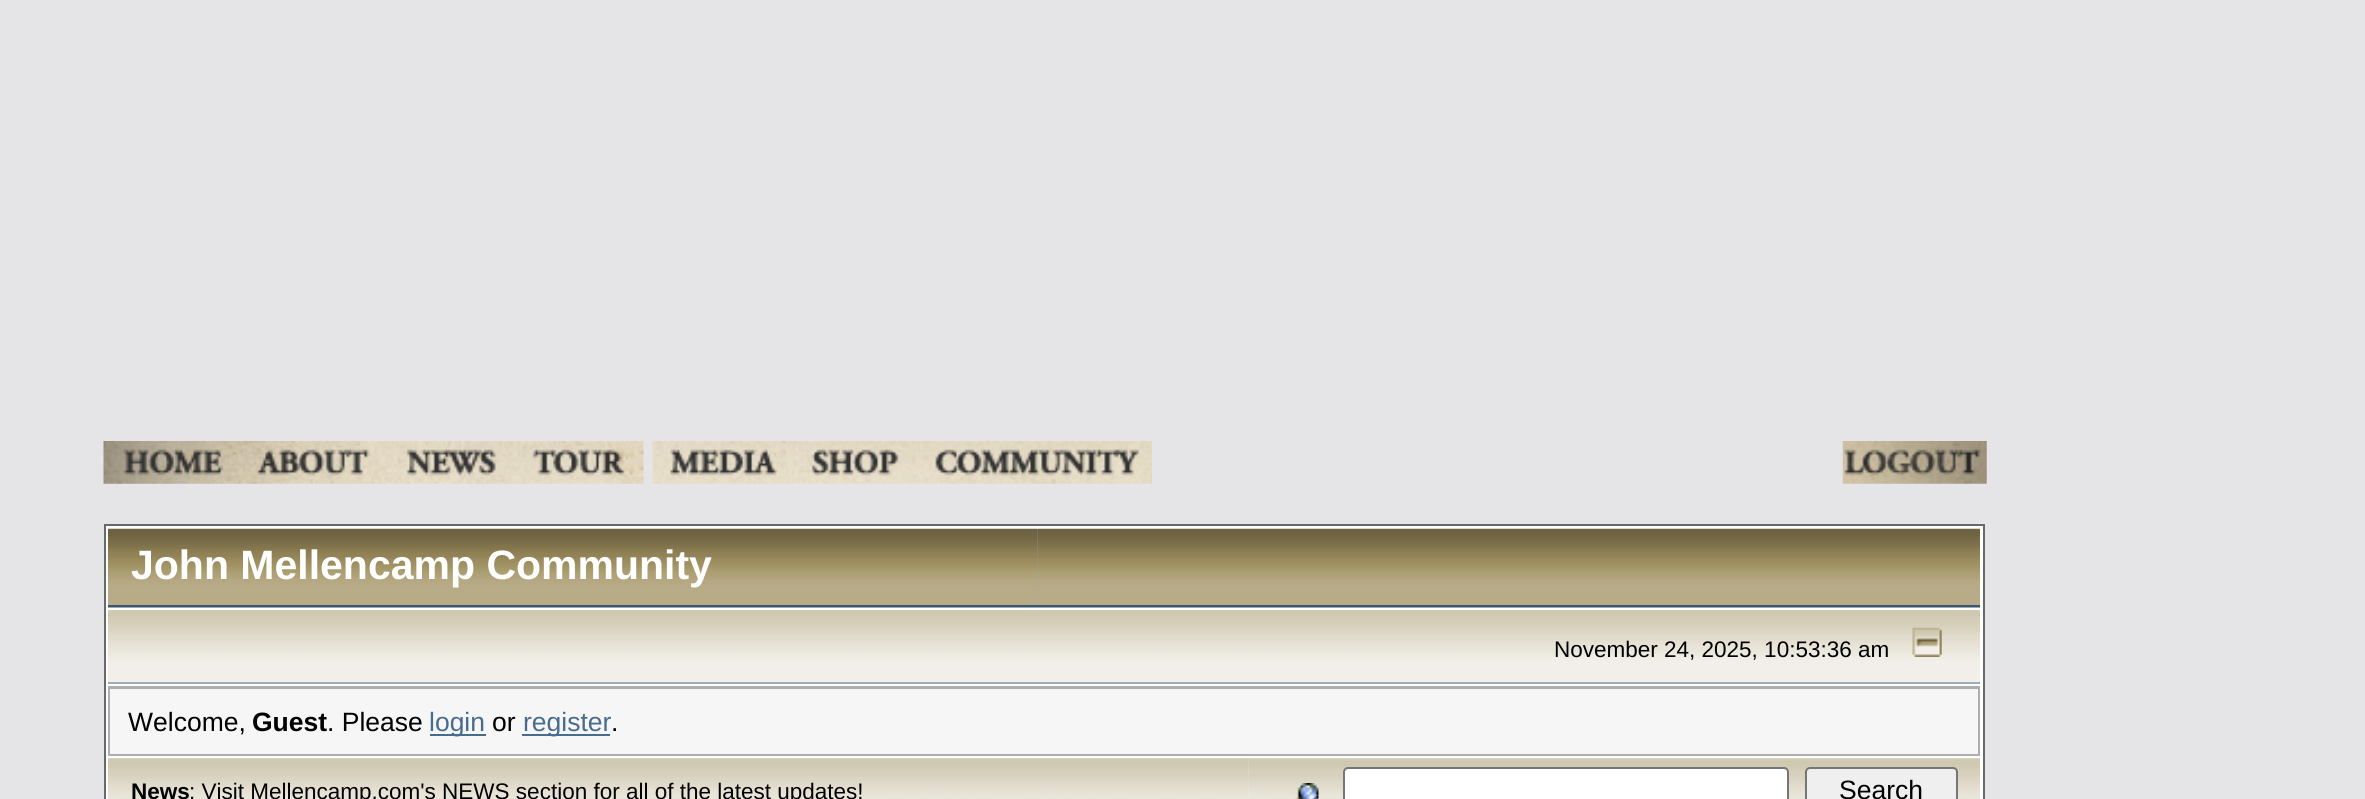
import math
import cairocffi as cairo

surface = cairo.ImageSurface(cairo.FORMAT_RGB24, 2365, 799)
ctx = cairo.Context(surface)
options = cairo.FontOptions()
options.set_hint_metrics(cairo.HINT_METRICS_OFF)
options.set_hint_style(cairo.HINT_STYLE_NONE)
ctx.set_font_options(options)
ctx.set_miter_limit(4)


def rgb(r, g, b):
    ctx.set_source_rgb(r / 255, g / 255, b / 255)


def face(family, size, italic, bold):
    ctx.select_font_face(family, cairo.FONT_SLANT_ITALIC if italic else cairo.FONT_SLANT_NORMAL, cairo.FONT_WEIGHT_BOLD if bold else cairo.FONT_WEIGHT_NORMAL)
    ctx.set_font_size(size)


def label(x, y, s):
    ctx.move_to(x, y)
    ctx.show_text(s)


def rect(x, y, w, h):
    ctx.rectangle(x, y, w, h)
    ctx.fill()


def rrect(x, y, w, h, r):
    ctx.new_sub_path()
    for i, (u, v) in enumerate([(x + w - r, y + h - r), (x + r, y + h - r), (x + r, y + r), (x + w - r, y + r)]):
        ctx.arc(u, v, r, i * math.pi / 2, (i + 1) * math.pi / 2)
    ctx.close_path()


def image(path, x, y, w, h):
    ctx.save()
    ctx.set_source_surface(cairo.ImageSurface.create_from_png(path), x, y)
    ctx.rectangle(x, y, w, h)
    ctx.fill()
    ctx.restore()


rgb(229, 229, 232)
ctx.paint()
image('image0.png', 103, 441, 140, 43)
image('image1.png', 243, 441, 147, 43)
image('image2.png', 389, 441, 127, 43)
image('image3.png', 515, 441, 129, 43)
image('image4.png', 652, 441, 145, 43)
image('image5.png', 796, 441, 125, 43)
image('image6.png', 920, 441, 232, 43)
image('image7.png', 1842, 441, 145, 43)
rgb(255, 255, 255)
ctx.rectangle(105, 525, 1879, 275)
ctx.fill_preserve()
rgb(105, 105, 105)
ctx.stroke()
rgb(136, 166, 192)
rect(108, 607, 929, 1)
image('image8.png', 108, 528, 930, 80)
rgb(55, 85, 118)
rect(108, 605, 929, 2)
face('Liberation Sans', 41, 0, 1)
rgb(255, 255, 255)
label(131, 579, 'John Mellencamp Community')
rgb(136, 166, 192)
rect(1037, 529, 943, 79)
image('image9.png', 1037, 528, 943, 80)
rgb(55, 85, 118)
rect(1037, 605, 943, 2)
image('image10.png', 108, 610, 1872, 72)
rgb(155, 174, 191)
rect(108, 682, 1872, 2)
face('Liberation Sans', 22.5, 0, 0)
rgb(0, 0, 0)
label(1554, 657, 'November 24, 2025, 10:53:36 am')
image('image11.png', 1912, 627, 30, 30)
rgb(173, 173, 173)
rect(108, 686, 1872, 70)
rgb(246, 246, 246)
rect(110, 689, 1868, 65)
face('Liberation Sans', 26.5, 0, 0)
rgb(0, 0, 0)
label(128, 731, 'Welcome,')
face('Liberation Sans', 26.5, 0, 1)
label(252, 731, 'Guest')
face('Liberation Sans', 26.5, 0, 0)
label(327, 731, '. Please')
rgb(71, 108, 142)
rect(430, 734, 56, 2)
label(429, 731, 'login')
rgb(0, 0, 0)
label(492, 731, 'or')
rgb(71, 108, 142)
rect(522, 734, 88, 2)
label(523, 731, 'register')
rgb(0, 0, 0)
label(611, 731, '.')
rgb(233, 240, 246)
rect(108, 758, 1141, 41)
image('image12.png', 108, 758, 1141, 41)
face('Liberation Sans', 22.5, 0, 1)
rgb(0, 0, 0)
label(131, 799, 'News')
face('Liberation Sans', 22.5, 0, 0)
label(189, 799, ': Visit Mellencamp.com\'s NEWS section for all of the latest updates!')
image('image13.png', 1248, 758, 732, 41)
image('image14.png', 1295, 783, 24, 16)
rgb(255, 255, 255)
rrect(1344, 768, 444, 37, 4)
ctx.fill_preserve()
rgb(118, 118, 118)
ctx.stroke()
rgb(239, 239, 239)
rrect(1806, 768, 151, 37, 4)
ctx.fill_preserve()
rgb(118, 118, 118)
ctx.stroke()
face('Liberation Sans', 26.5, 0, 0)
rgb(0, 0, 0)
label(1839, 799, 'Search')
surface.write_to_png('render.png')
